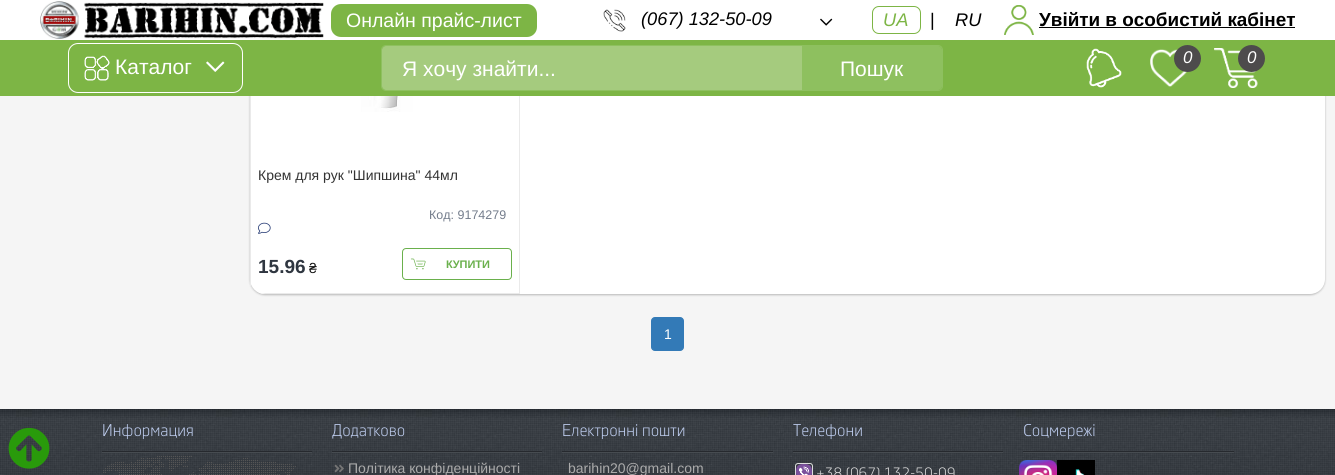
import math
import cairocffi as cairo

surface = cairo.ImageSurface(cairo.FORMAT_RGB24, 1335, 475)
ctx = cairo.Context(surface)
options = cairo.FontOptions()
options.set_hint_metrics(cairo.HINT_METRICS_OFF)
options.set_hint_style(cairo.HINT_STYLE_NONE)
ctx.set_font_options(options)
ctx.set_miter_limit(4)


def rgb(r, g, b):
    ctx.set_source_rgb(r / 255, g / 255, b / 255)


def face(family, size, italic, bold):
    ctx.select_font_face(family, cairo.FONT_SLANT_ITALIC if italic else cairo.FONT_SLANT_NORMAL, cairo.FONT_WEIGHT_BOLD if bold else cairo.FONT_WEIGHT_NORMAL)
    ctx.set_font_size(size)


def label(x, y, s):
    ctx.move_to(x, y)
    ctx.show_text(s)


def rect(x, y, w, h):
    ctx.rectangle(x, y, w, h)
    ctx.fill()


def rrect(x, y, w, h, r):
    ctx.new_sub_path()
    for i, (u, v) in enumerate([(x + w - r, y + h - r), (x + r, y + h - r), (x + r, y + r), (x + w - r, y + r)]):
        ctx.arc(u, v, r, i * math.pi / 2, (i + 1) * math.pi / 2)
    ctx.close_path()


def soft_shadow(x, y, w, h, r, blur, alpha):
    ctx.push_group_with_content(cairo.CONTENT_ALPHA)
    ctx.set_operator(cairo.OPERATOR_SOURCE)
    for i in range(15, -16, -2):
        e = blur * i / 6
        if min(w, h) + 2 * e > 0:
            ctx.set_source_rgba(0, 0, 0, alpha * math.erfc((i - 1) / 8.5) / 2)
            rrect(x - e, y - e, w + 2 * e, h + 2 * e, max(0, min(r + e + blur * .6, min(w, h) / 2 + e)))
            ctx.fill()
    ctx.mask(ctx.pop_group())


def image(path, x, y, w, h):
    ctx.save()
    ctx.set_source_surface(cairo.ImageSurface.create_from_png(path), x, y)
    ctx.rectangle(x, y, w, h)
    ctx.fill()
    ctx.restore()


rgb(245, 245, 245)
ctx.paint()
rgb(0, 0, 0)
soft_shadow(250, -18, 1075, 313, 15, 1, 0.25)
rgb(255, 255, 255)
rrect(250, -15, 1075, 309, 15)
ctx.fill()
ctx.new_path()
ctx.move_to(251, -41)
ctx.line_to(251, 279)
ctx.curve_to(251, 287, 257, 294, 265, 294)
ctx.line_to(520, 294)
ctx.line_to(520, -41)
ctx.close_path()
ctx.fill()
rect(0, 0, 1335, 40)
image('image0.png', 40, 1, 284, 38)
rgb(125, 181, 69)
rrect(331, 4, 206, 33, 10)
ctx.fill()
face('Liberation Sans', 19.5, 0, 0)
rgb(255, 255, 255)
label(346, 27, 'Онлайн прайс-лист')
image('image1.png', 603, 9, 23, 23)
face('Liberation Sans', 18.25, 1, 0)
rgb(0, 0, 0)
label(641, 25, '(067) 132-50-09')
image('image2.png', 820, 18, 13, 8)
rrect(872.5, 6.5, 48, 27, 6.5)
rgb(125, 181, 69)
ctx.set_line_width(1)
ctx.stroke()
label(883, 26, 'UA')
face('Liberation Sans', 18.25, 0, 0)
rgb(0, 0, 0)
label(930, 26, '|')
face('Liberation Sans', 18.25, 1, 0)
label(955, 26, 'RU')
image('image3.png', 1004, 5, 30, 30)
face('Liberation Sans', 18.9, 0, 1)
label(1039, 26, 'Увійти в особистий кабінет')
rect(1039, 27, 256, 1)
rgb(125, 181, 69)
rect(0, 40, 1335, 56)
image('image4.png', 1086, 48, 36, 40)
image('image5.png', 1150, 49, 38, 38)
rgb(77, 75, 76)
ctx.arc(1187.5, 58.5, 13.5, 0, 2 * math.pi)
ctx.fill()
face('Liberation Sans', 17, 1, 0)
rgb(255, 255, 255)
label(1183, 63, '0')
image('image6.png', 1214, 48, 49, 40)
rgb(77, 75, 76)
ctx.arc(1251.5, 58.5, 13.5, 0, 2 * math.pi)
ctx.fill()
rgb(255, 255, 255)
label(1247, 63, '0')
rrect(68.5, 43.5, 174, 49, 9.5)
ctx.stroke()
image('image7.png', 84, 55, 26, 26)
face('Liberation Sans', 21, 0, 0)
label(115, 74, 'Каталог')
image('image8.png', 206, 61, 19, 11)
rrect(381.5, 45.5, 561, 45, 4.5)
rgb(142, 192, 95)
ctx.stroke()
rgb(165, 203, 126)
ctx.new_path()
ctx.move_to(386, 46)
ctx.line_to(802, 46)
ctx.line_to(802, 90)
ctx.line_to(386, 90)
ctx.curve_to(384, 90, 382, 88, 382, 86)
ctx.line_to(382, 50)
ctx.curve_to(382, 48, 384, 46, 386, 46)
ctx.close_path()
ctx.fill()
rgb(255, 255, 255)
label(402, 76, 'Я хочу знайти...')
rgb(142, 192, 95)
ctx.new_path()
ctx.move_to(802, 46)
ctx.line_to(938, 46)
ctx.curve_to(940, 46, 942, 48, 942, 50)
ctx.line_to(942, 86)
ctx.curve_to(942, 88, 940, 90, 938, 90)
ctx.line_to(802, 90)
ctx.close_path()
ctx.fill()
rgb(255, 255, 255)
label(840, 76, 'Пошук')
image('image13.png', 0, 409, 1335, 66)
image('image9.png', 8, 427, 42, 42)
rgb(234, 234, 234)
rect(250, 96, 1, 191)
rect(519, 96, 1, 198)
ctx.new_path()
ctx.move_to(265, 294)
ctx.line_to(520, 294)
ctx.line_to(520, 293)
ctx.line_to(260, 293)
ctx.close_path()
ctx.fill()
image('image10.png', 361, 96, 52, 16)
face('Liberation Sans', 14, 0, 0)
rgb(51, 51, 51)
label(258, 180, 'Крем для рук "Шипшина" 44мл')
face('Liberation Sans', 12.5, 0, 0)
rgb(116, 125, 140)
label(429, 219, 'Код: 9174279')
image('image11.png', 258, 222, 13, 12)
face('Liberation Sans', 19, 0, 1)
rgb(47, 54, 64)
label(258, 273, '15.96')
face('Liberation Sans', 14, 0, 0)
rgb(17, 17, 17)
label(309, 273, '₴')
rrect(402.5, 248.5, 109, 31, 3.5)
rgb(106, 176, 76)
ctx.stroke()
image('image12.png', 410, 258, 16, 12)
face('Liberation Sans', 11, 0, 1)
label(446, 268, 'КУПИТИ')
rgb(51, 122, 183)
rrect(651.5, 317.5, 32, 33, 3.5)
ctx.fill_preserve()
ctx.stroke()
face('Liberation Sans', 14, 0, 0)
rgb(255, 255, 255)
label(664, 339, '1')
image('image14.png', 103, 456, 193, 19)
face('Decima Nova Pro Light', 17, 0, 0)
rgb(191, 206, 240)
label(102, 436, 'Информация')
rgb(38, 41, 46)
rect(102, 451, 210, 1)
rgb(71, 76, 81)
rect(102, 452, 210, 1)
rgb(191, 206, 240)
label(332, 436, 'Додатково')
rgb(38, 41, 46)
rect(332, 451, 210, 1)
rgb(71, 76, 81)
rect(332, 452, 210, 1)
image('image15.png', 334, 464, 10, 9)
face('Liberation Sans', 14, 0, 0)
rgb(171, 171, 171)
label(348, 473, 'Політика конфіденційності')
face('Decima Nova Pro Light', 17, 0, 0)
rgb(191, 206, 240)
label(562, 436, 'Електронні пошти')
rgb(38, 41, 46)
rect(562, 451, 211, 1)
rgb(71, 76, 81)
rect(562, 452, 211, 1)
face('Liberation Sans', 14, 0, 0)
rgb(171, 171, 171)
label(568, 473, 'barihin20@gmail.com')
face('Decima Nova Pro Light', 17, 0, 0)
rgb(191, 206, 240)
label(793, 436, 'Телефони')
rgb(38, 41, 46)
rect(793, 451, 210, 1)
rgb(71, 76, 81)
rect(793, 452, 210, 1)
rrect(795.5, 463.5, 17, 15, 2.5)
rgb(221, 221, 221)
ctx.stroke()
image('image16.png', 796, 464, 16, 11)
face('Decima Nova Pro Light', 15, 0, 0)
label(816, 478, '+38 (067) 132-50-09')
face('Decima Nova Pro Light', 17, 0, 0)
rgb(191, 206, 240)
label(1023, 436, 'Соцмережі')
rgb(38, 41, 46)
rect(1023, 451, 211, 1)
rgb(71, 76, 81)
rect(1023, 452, 211, 1)
image('image17.png', 1019, 460, 38, 15)
image('image18.png', 1057, 460, 38, 15)
surface.write_to_png('render.png')
